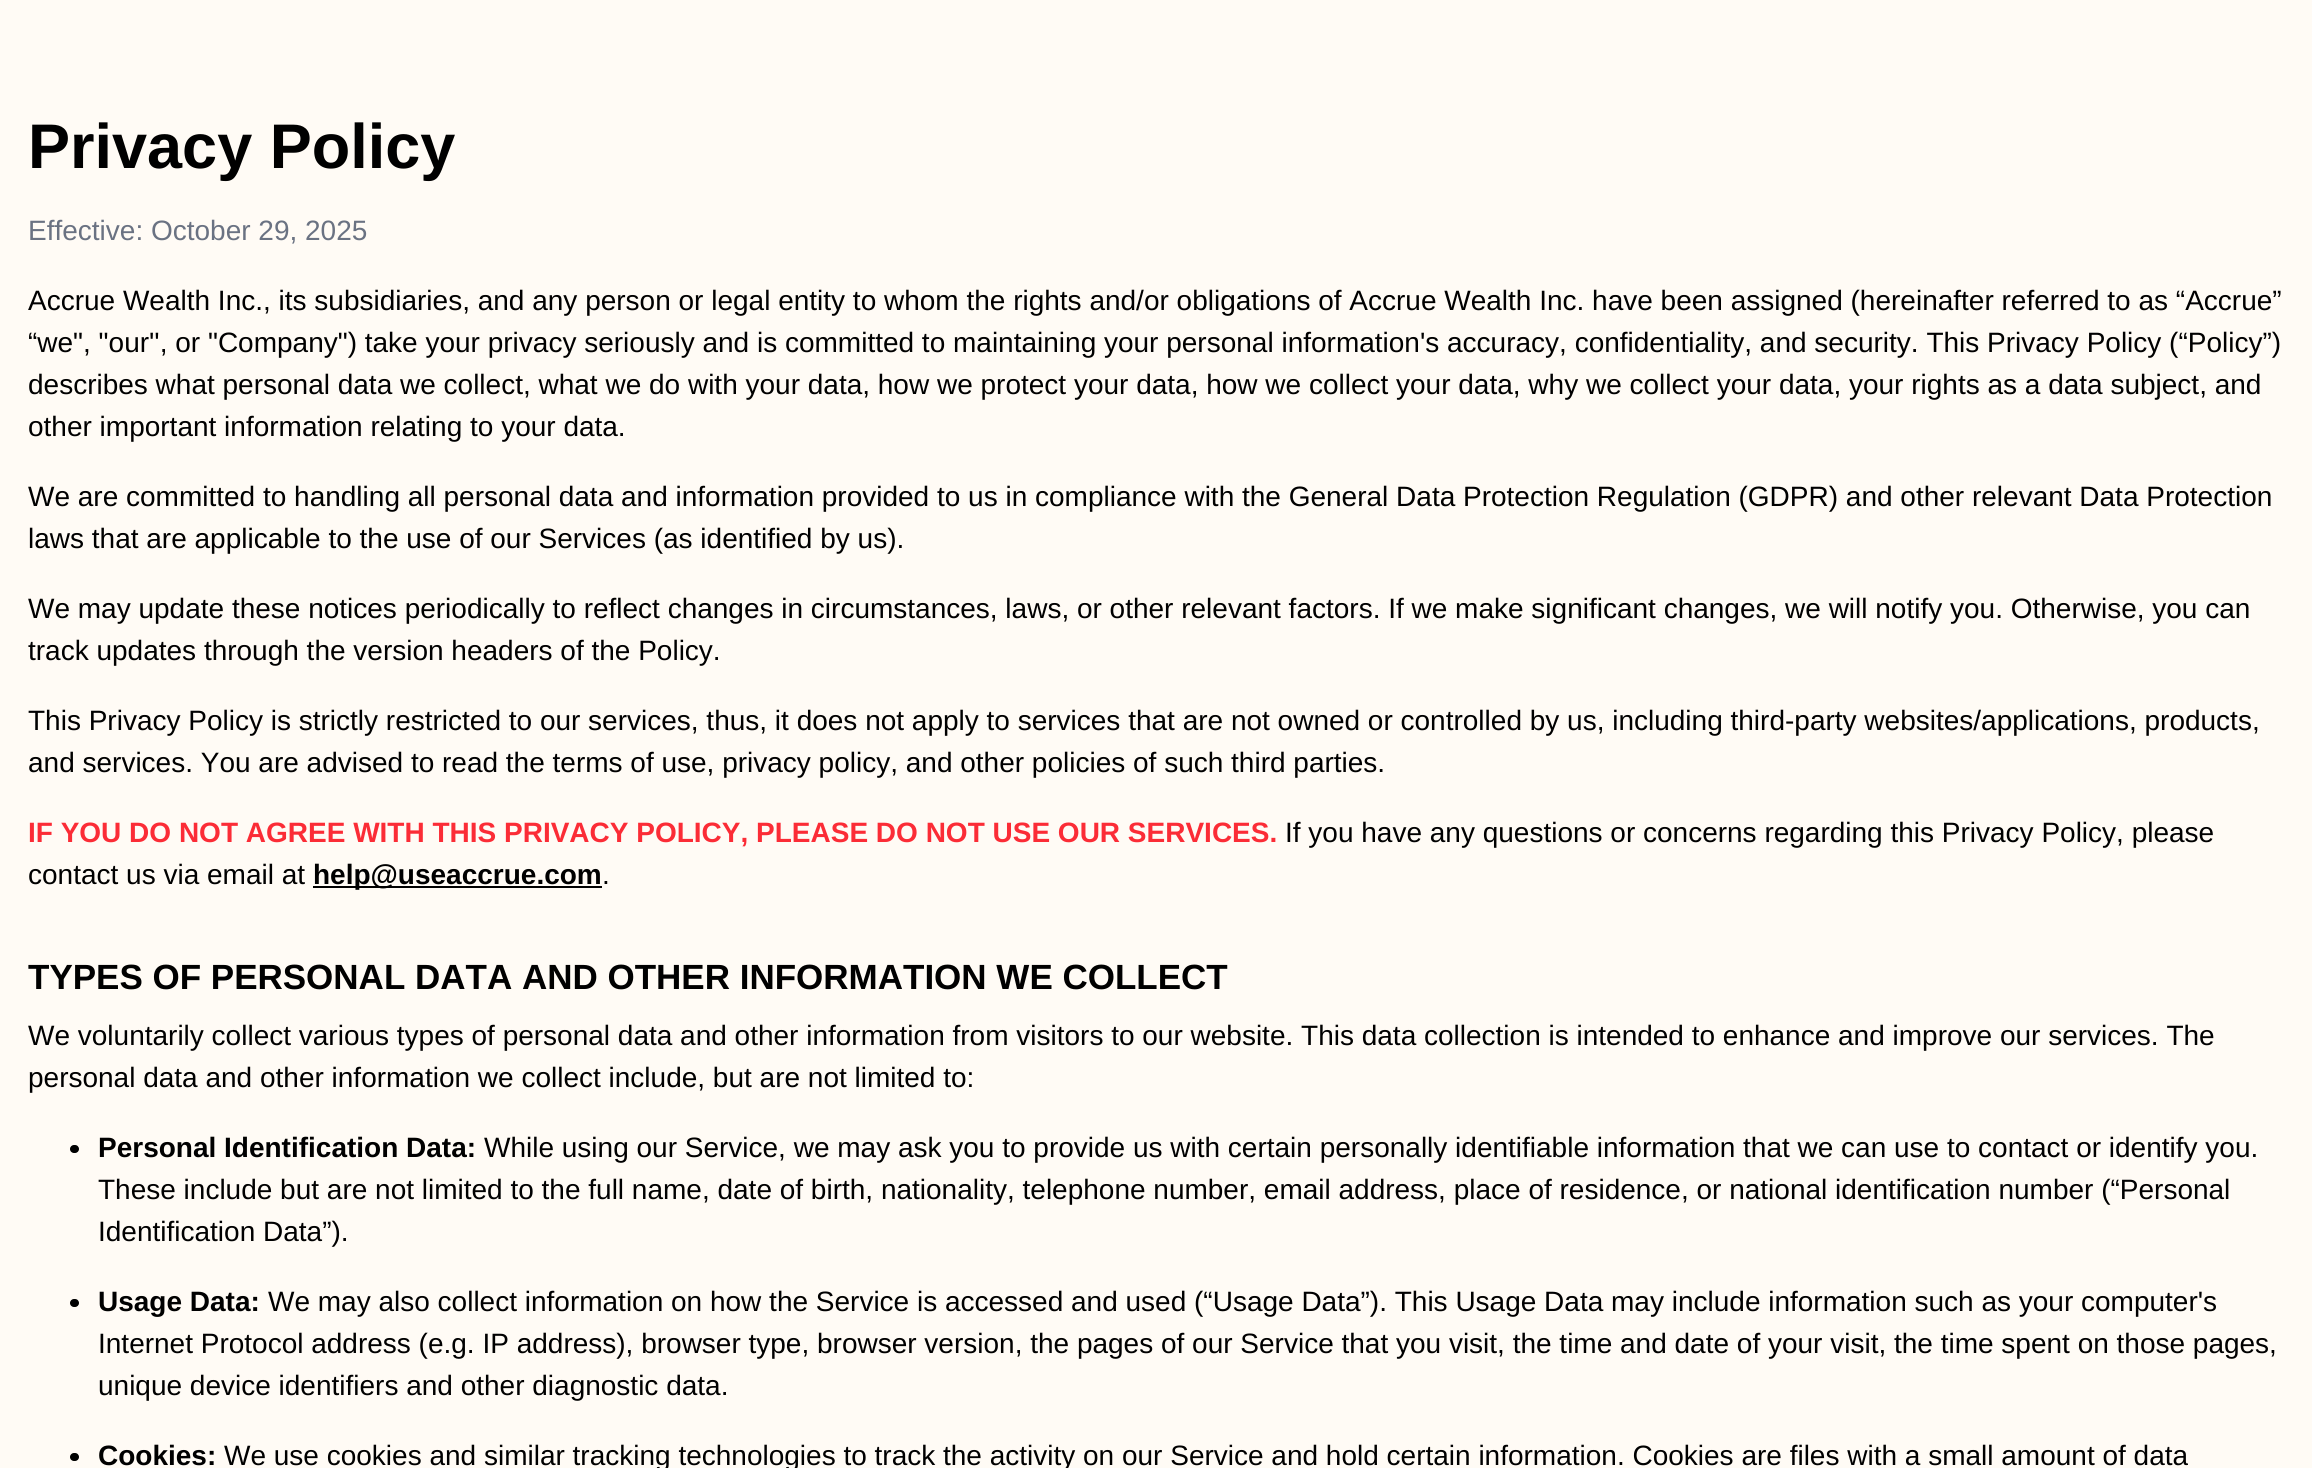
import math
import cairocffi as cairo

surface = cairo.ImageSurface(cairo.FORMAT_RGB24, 2312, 1468)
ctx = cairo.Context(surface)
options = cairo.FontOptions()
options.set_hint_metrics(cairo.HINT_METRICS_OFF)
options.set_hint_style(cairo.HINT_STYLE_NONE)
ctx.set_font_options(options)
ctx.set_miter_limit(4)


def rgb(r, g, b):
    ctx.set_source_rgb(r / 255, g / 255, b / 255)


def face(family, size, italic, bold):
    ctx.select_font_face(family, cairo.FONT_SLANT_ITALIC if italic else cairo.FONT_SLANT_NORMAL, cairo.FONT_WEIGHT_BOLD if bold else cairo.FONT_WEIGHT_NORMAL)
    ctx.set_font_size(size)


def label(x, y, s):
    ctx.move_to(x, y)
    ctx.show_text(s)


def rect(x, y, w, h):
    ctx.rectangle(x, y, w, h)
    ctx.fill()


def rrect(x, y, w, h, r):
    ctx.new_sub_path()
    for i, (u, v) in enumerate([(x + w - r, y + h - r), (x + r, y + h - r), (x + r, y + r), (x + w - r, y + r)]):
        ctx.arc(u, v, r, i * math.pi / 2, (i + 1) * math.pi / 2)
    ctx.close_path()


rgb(255, 251, 245)
ctx.paint()
face('Liberation Sans', 63, 0, 1)
rgb(0, 0, 0)
label(28, 168, 'Privacy Policy')
face('Liberation Sans', 28, 0, 0)
rgb(106, 114, 130)
label(28, 240, 'Effective: October 29, 2025')
rgb(0, 0, 0)
label(28, 310, 'Accrue Wealth Inc., its subsidiaries, and any person or legal entity to whom the rights and/or obligations of Accrue Wealth Inc. have been assigned (hereinafter referred to as “Accrue”')
label(28, 352, '“we", "our\'\', or "Company") take your privacy seriously and is committed to maintaining your personal information\'s accuracy, confidentiality, and security. This Privacy Policy (“Policy”)')
label(28, 394, 'describes what personal data we collect, what we do with your data, how we protect your data, how we collect your data, why we collect your data, your rights as a data subject, and')
label(28, 436, 'other important information relating to your data.')
label(28, 506, 'We are committed to handling all personal data and information provided to us in compliance with the General Data Protection Regulation (GDPR) and other relevant Data Protection')
label(28, 548, 'laws that are applicable to the use of our Services (as identified by us).')
label(28, 618, 'We may update these notices periodically to reflect changes in circumstances, laws, or other relevant factors. If we make significant changes, we will notify you. Otherwise, you can')
label(28, 660, 'track updates through the version headers of the Policy.')
label(28, 730, 'This Privacy Policy is strictly restricted to our services, thus, it does not apply to services that are not owned or controlled by us, including third-party websites/applications, products,')
label(28, 772, 'and services. You are advised to read the terms of use, privacy policy, and other policies of such third parties.')
face('Liberation Sans', 28, 0, 1)
rgb(251, 44, 54)
label(28, 842, 'IF YOU DO NOT AGREE WITH THIS PRIVACY POLICY, PLEASE DO NOT USE OUR SERVICES.')
face('Liberation Sans', 28, 0, 0)
rgb(0, 0, 0)
label(1285, 842, 'If you have any questions or concerns regarding this Privacy Policy, please')
label(28, 884, 'contact us via email at')
rect(313, 886, 289, 2)
face('Liberation Sans', 28, 0, 1)
label(313, 884, 'help@useaccrue.com')
face('Liberation Sans', 28, 0, 0)
label(602, 884, '.')
face('Liberation Sans', 35, 0, 1)
label(28, 989, 'TYPES OF PERSONAL DATA AND OTHER INFORMATION WE COLLECT')
face('Liberation Sans', 28, 0, 0)
label(28, 1045, 'We voluntarily collect various types of personal data and other information from visitors to our website. This data collection is intended to enhance and improve our services. The')
label(28, 1087, 'personal data and other information we collect include, but are not limited to:')
rrect(70, 1145, 9, 8, 4)
ctx.fill()
face('Liberation Sans', 28, 0, 1)
label(98, 1157, 'Personal Identification Data:')
face('Liberation Sans', 28, 0, 0)
label(484, 1157, 'While using our Service, we may ask you to provide us with certain personally identifiable information that we can use to contact or identify you.')
label(98, 1199, 'These include but are not limited to the full name, date of birth, nationality, telephone number, email address, place of residence, or national identification number (“Personal')
label(98, 1241, 'Identification Data”).')
rrect(70, 1299, 9, 8, 4)
ctx.fill()
face('Liberation Sans', 28, 0, 1)
label(98, 1311, 'Usage Data:')
face('Liberation Sans', 28, 0, 0)
label(268, 1311, 'We may also collect information on how the Service is accessed and used (“Usage Data”). This Usage Data may include information such as your computer\'s')
label(98, 1353, 'Internet Protocol address (e.g. IP address), browser type, browser version, the pages of our Service that you visit, the time and date of your visit, the time spent on those pages,')
label(98, 1395, 'unique device identifiers and other diagnostic data.')
rrect(70, 1453, 9, 8, 4)
ctx.fill()
face('Liberation Sans', 28, 0, 1)
label(98, 1465, 'Cookies:')
face('Liberation Sans', 28, 0, 0)
label(224, 1465, 'We use cookies and similar tracking technologies to track the activity on our Service and hold certain information. Cookies are files with a small amount of data')
surface.write_to_png('render.png')
